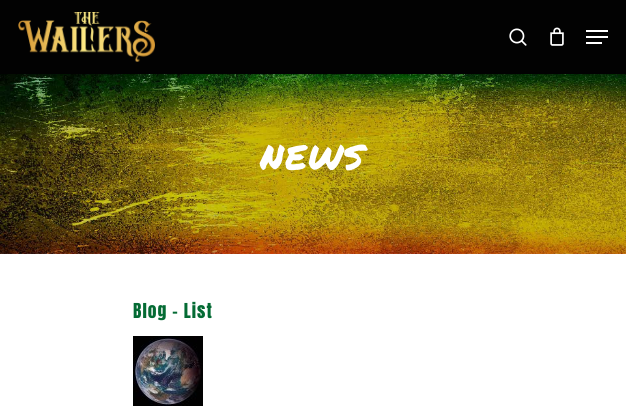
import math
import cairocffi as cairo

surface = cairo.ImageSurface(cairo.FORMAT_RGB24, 626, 420)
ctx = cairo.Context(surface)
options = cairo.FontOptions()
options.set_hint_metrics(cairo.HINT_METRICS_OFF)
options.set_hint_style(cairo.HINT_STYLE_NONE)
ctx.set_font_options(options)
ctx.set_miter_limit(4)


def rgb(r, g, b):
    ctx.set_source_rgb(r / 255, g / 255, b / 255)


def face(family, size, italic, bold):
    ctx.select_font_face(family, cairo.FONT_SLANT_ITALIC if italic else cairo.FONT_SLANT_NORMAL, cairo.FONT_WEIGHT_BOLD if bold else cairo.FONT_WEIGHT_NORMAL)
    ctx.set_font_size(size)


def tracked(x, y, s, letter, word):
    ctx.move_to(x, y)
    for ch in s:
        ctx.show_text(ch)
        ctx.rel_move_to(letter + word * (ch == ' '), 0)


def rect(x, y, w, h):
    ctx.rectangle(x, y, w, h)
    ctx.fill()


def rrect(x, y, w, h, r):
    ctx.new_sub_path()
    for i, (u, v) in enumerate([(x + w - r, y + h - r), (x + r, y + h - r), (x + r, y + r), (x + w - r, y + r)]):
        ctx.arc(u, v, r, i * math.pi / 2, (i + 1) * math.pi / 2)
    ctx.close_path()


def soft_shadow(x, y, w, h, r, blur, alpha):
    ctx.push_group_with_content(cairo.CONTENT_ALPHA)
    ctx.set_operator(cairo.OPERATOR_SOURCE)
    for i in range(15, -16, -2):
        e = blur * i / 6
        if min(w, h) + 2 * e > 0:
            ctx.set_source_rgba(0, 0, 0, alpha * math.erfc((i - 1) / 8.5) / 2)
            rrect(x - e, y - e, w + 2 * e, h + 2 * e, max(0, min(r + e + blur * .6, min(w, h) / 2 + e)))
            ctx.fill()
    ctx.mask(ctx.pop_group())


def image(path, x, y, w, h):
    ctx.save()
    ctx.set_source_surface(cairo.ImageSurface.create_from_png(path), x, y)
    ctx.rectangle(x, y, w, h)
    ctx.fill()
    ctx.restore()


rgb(255, 255, 255)
ctx.paint()
image('image3.png', 0, 74, 626, 180)
rgb(0, 0, 0)
soft_shadow(0, 0, 626, 74, 0, 1.5, 0.22)
rgb(2, 2, 2)
rect(0, 0, 626, 74)
image('image0.png', 18, 12, 137, 50)
image('image1.png', 509, 28, 18, 18)
image('image2.png', 550, 27, 14, 19)
rgb(255, 255, 255)
rect(586, 30, 22, 2)
rect(586, 42, 16, 2)
rect(586, 36, 22, 2)
face('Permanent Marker', 35, 0, 0)
tracked(260, 170, 'NEWS', 1, 0)
face('Anton', 17.5, 0, 0)
rgb(4, 107, 52)
tracked(133, 318, 'Blog – List', 1, 0)
image('image4.png', 133, 336, 70, 70)
surface.write_to_png('render.png')
